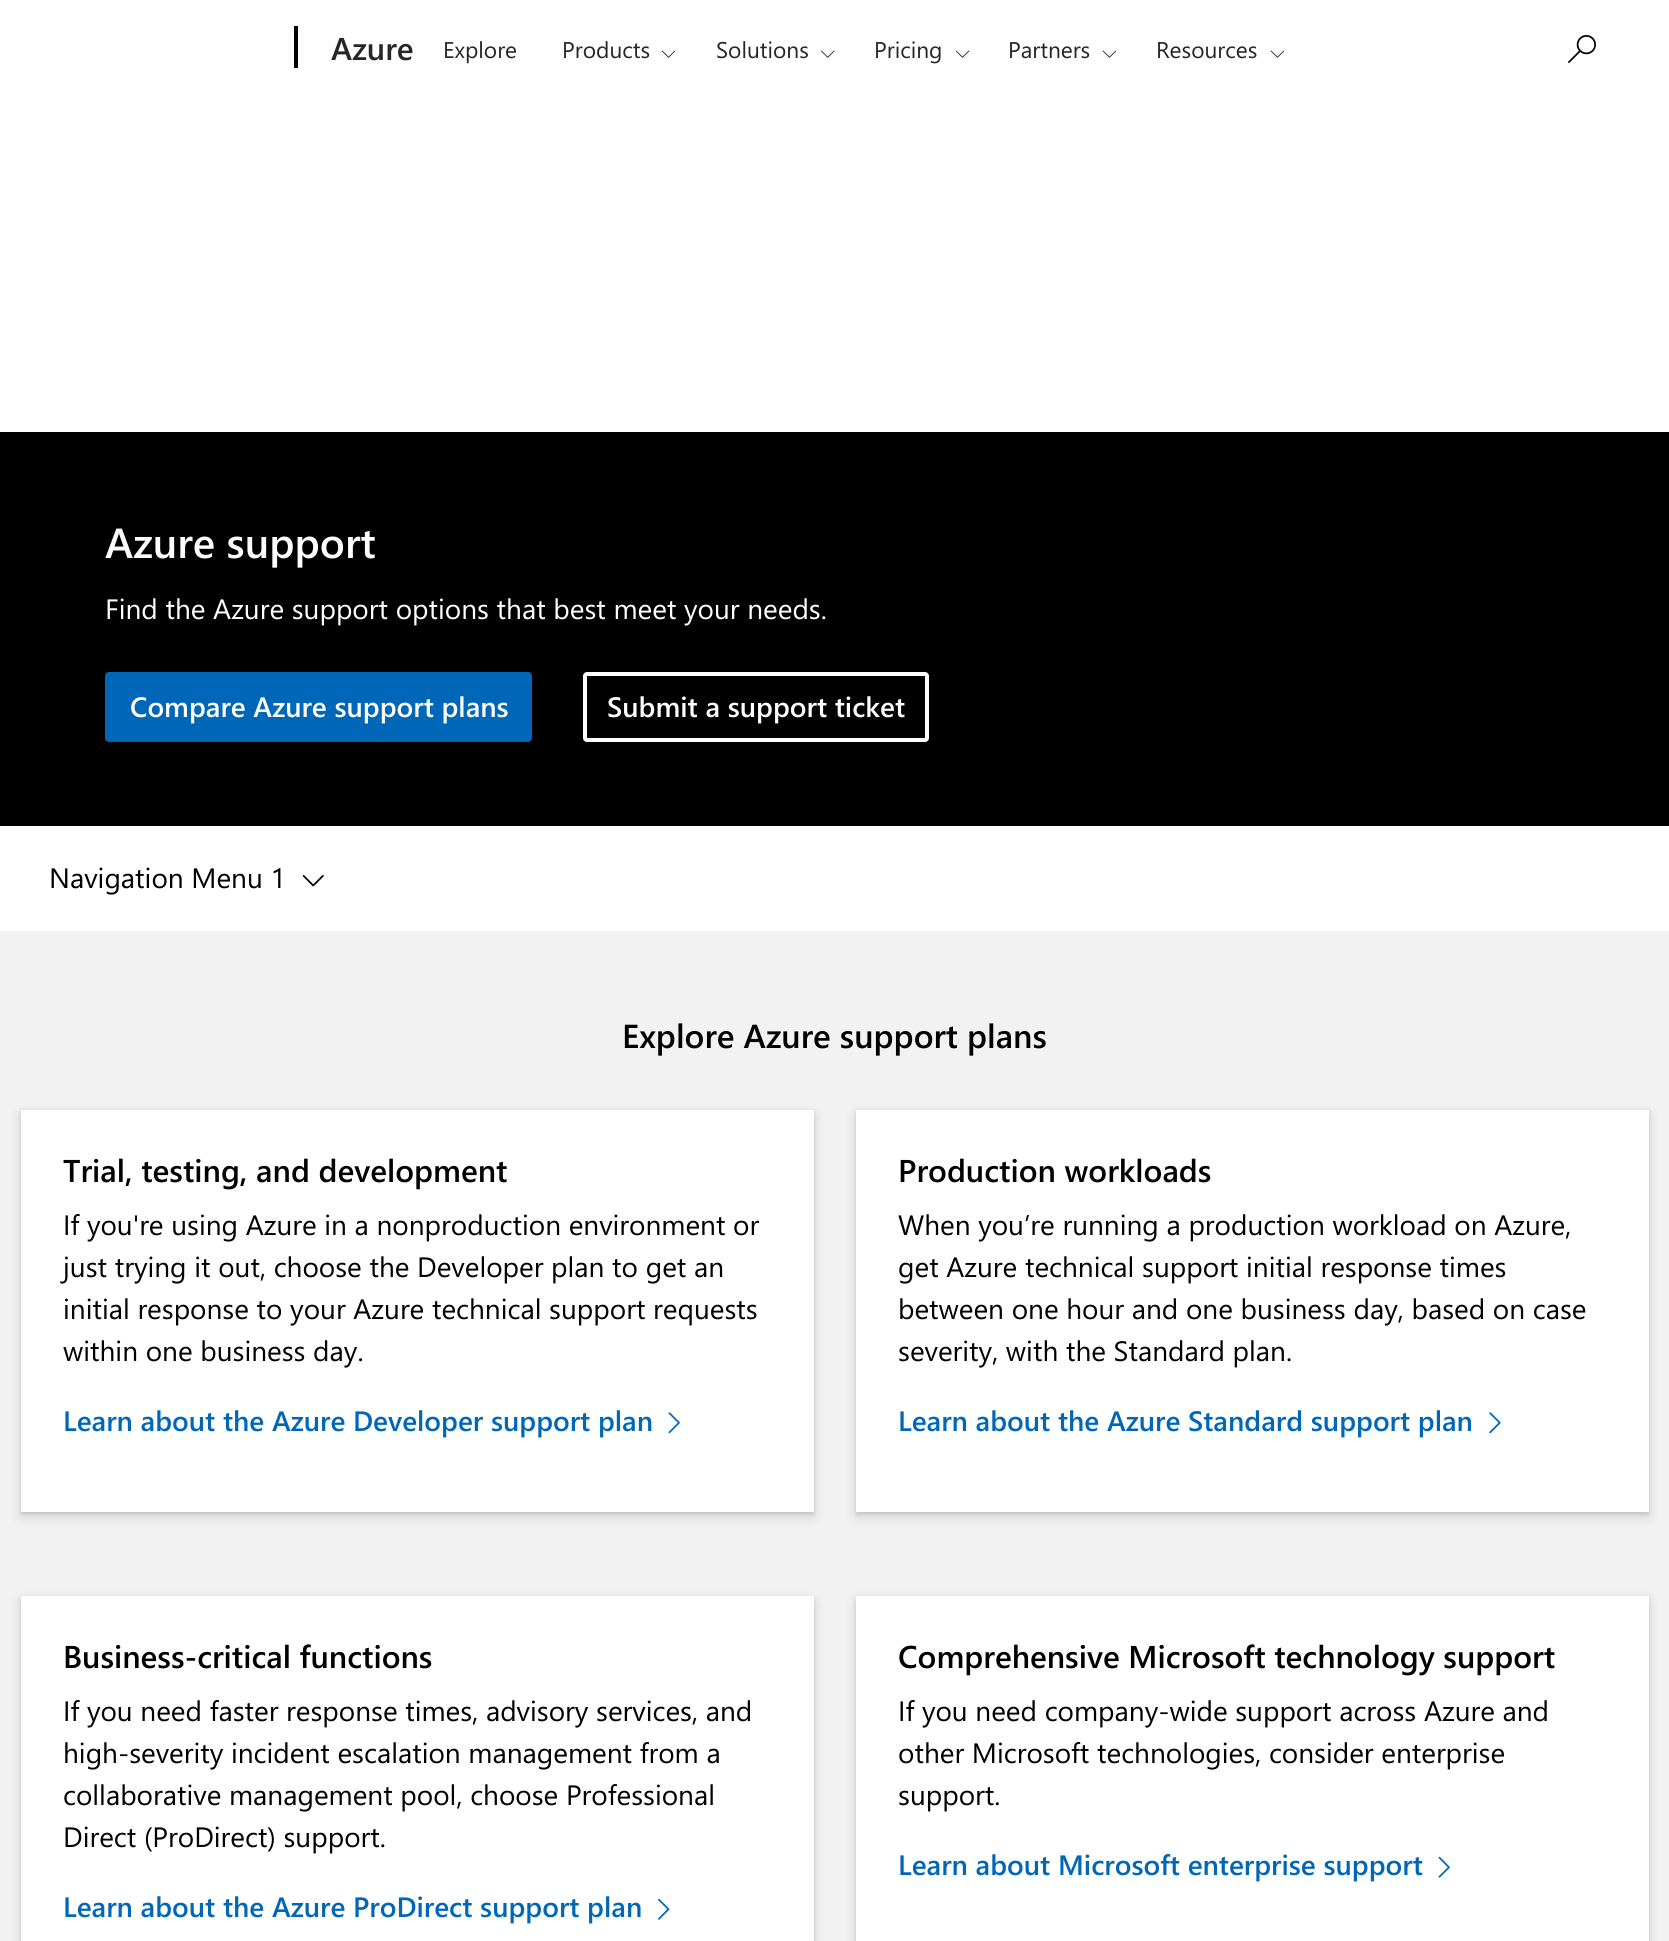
import math
import cairocffi as cairo

surface = cairo.ImageSurface(cairo.FORMAT_RGB24, 1669, 1941)
ctx = cairo.Context(surface)
options = cairo.FontOptions()
options.set_hint_metrics(cairo.HINT_METRICS_OFF)
options.set_hint_style(cairo.HINT_STYLE_NONE)
ctx.set_font_options(options)
ctx.set_miter_limit(4)


def rgb(r, g, b):
    ctx.set_source_rgb(r / 255, g / 255, b / 255)


def face(family, size, italic, bold):
    ctx.select_font_face(family, cairo.FONT_SLANT_ITALIC if italic else cairo.FONT_SLANT_NORMAL, cairo.FONT_WEIGHT_BOLD if bold else cairo.FONT_WEIGHT_NORMAL)
    ctx.set_font_size(size)


def label(x, y, s):
    ctx.move_to(x, y)
    ctx.show_text(s)


def rect(x, y, w, h):
    ctx.rectangle(x, y, w, h)
    ctx.fill()


def rrect(x, y, w, h, r):
    ctx.new_sub_path()
    for i, (u, v) in enumerate([(x + w - r, y + h - r), (x + r, y + h - r), (x + r, y + r), (x + w - r, y + r)]):
        ctx.arc(u, v, r, i * math.pi / 2, (i + 1) * math.pi / 2)
    ctx.close_path()


def soft_shadow(x, y, w, h, r, blur, alpha):
    ctx.push_group_with_content(cairo.CONTENT_ALPHA)
    ctx.set_operator(cairo.OPERATOR_SOURCE)
    for i in range(15, -16, -2):
        e = blur * i / 6
        if min(w, h) + 2 * e > 0:
            ctx.set_source_rgba(0, 0, 0, alpha * math.erfc((i - 1) / 8.5) / 2)
            rrect(x - e, y - e, w + 2 * e, h + 2 * e, max(0, min(r + e + blur * .6, min(w, h) / 2 + e)))
            ctx.fill()
    ctx.mask(ctx.pop_group())


def image(path, x, y, w, h):
    ctx.save()
    ctx.set_source_surface(cairo.ImageSurface.create_from_png(path), x, y)
    ctx.rectangle(x, y, w, h)
    ctx.fill()
    ctx.restore()


rgb(255, 255, 255)
ctx.paint()
rgb(0, 0, 0)
rect(294, 26, 4, 42)
face('Segoe UI SemiBold', 31.5, 0, 0)
rgb(38, 38, 38)
label(331, 60, 'Azure')
face('Segoe UI', 22.75, 0, 0)
label(443, 58, 'Explore')
label(562, 58, 'Products')
image('image0.png', 661, 50, 15, 8)
label(716, 58, 'Solutions')
image('image1.png', 821, 50, 14, 8)
label(874, 58, 'Pricing')
image('image0.png', 955, 50, 15, 8)
label(1008, 58, 'Partners')
image('image0.png', 1102, 50, 15, 8)
label(1156, 58, 'Resources')
image('image0.png', 1270, 50, 15, 8)
image('image2.png', 1568, 35, 28, 28)
rgb(0, 0, 0)
rect(0, 432, 1669, 394)
face('Segoe UI SemiBold', 42, 0, 0)
rgb(255, 255, 255)
label(105, 558, 'Azure support')
face('Segoe UI', 28, 0, 0)
label(105, 619, 'Find the Azure support options that best meet your needs.')
rgb(0, 103, 184)
rrect(105, 672, 427, 70, 4)
ctx.fill()
face('Segoe UI SemiBold', 28, 0, 0)
rgb(255, 255, 255)
label(130, 717, 'Compare Azure support plans')
rrect(585, 674, 342, 66, 2)
ctx.set_line_width(4)
ctx.stroke()
label(607, 717, 'Submit a support ticket')
face('Segoe UI', 28, 0, 0)
rgb(0, 0, 0)
label(49, 888, 'Navigation Menu 1')
image('image3.png', 302, 875, 22, 12)
rgb(242, 242, 242)
rect(0, 931, 1669, 1010)
face('Segoe UI SemiBold', 33.25, 0, 0)
rgb(0, 0, 0)
label(622, 1048, 'Explore Azure support plans')
rgb(0, 0, 0)
soft_shadow(21, 1111, 793, 403, 0, 2, 0.11)
soft_shadow(21, 1115, 793, 402, 0, 6, 0.13)
rgb(255, 255, 255)
rect(21, 1110, 793, 402)
face('Segoe UI SemiBold', 31.5, 0, 0)
rgb(0, 0, 0)
label(63, 1182, 'Trial, testing, and development')
face('Segoe UI', 28, 0, 0)
label(63, 1235, 'If you\'re using Azure in a nonproduction environment or')
label(63, 1277, 'just trying it out, choose the Developer plan to get an')
label(63, 1319, 'initial response to your Azure technical support requests')
label(63, 1361, 'within one business day.')
face('Segoe UI SemiBold', 28, 0, 0)
rgb(0, 103, 184)
label(63, 1431, 'Learn about the Azure Developer support plan')
image('image4.png', 668, 1412, 12, 22)
rgb(0, 0, 0)
soft_shadow(856, 1111, 793, 403, 0, 2, 0.11)
soft_shadow(856, 1115, 793, 402, 0, 6, 0.13)
rgb(255, 255, 255)
rect(856, 1110, 793, 402)
face('Segoe UI SemiBold', 31.5, 0, 0)
rgb(0, 0, 0)
label(898, 1182, 'Production workloads')
face('Segoe UI', 28, 0, 0)
label(898, 1235, 'When you’re running a production workload on Azure,')
label(898, 1277, 'get Azure technical support initial response times')
label(898, 1319, 'between one hour and one business day, based on case')
label(898, 1361, 'severity, with the Standard plan.')
face('Segoe UI SemiBold', 28, 0, 0)
rgb(0, 103, 184)
label(898, 1431, 'Learn about the Azure Standard support plan')
image('image5.png', 1489, 1412, 12, 22)
rgb(0, 0, 0)
soft_shadow(21, 1598, 793, 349, 0, 2, 0.11)
soft_shadow(21, 1601, 793, 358, 0, 6, 0.13)
rgb(255, 255, 255)
rect(21, 1596, 793, 345)
face('Segoe UI SemiBold', 31.5, 0, 0)
rgb(0, 0, 0)
label(63, 1668, 'Business-critical functions')
face('Segoe UI', 28, 0, 0)
label(63, 1721, 'If you need faster response times, advisory services, and')
label(63, 1763, 'high-severity incident escalation management from a')
label(63, 1805, 'collaborative management pool, choose Professional')
label(63, 1847, 'Direct (ProDirect) support.')
face('Segoe UI SemiBold', 28, 0, 0)
rgb(0, 103, 184)
label(63, 1917, 'Learn about the Azure ProDirect support plan')
image('image6.png', 658, 1898, 12, 22)
rgb(0, 0, 0)
soft_shadow(856, 1598, 793, 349, 0, 2, 0.11)
soft_shadow(856, 1601, 793, 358, 0, 6, 0.13)
rgb(255, 255, 255)
rect(856, 1596, 793, 345)
face('Segoe UI SemiBold', 31.5, 0, 0)
rgb(0, 0, 0)
label(898, 1668, 'Comprehensive Microsoft technology support')
face('Segoe UI', 28, 0, 0)
label(898, 1721, 'If you need company-wide support across Azure and')
label(898, 1763, 'other Microsoft technologies, consider enterprise')
label(898, 1805, 'support.')
face('Segoe UI SemiBold', 28, 0, 0)
rgb(0, 103, 184)
label(898, 1875, 'Learn about Microsoft enterprise support')
image('image7.png', 1438, 1856, 12, 22)
surface.write_to_png('render.png')
